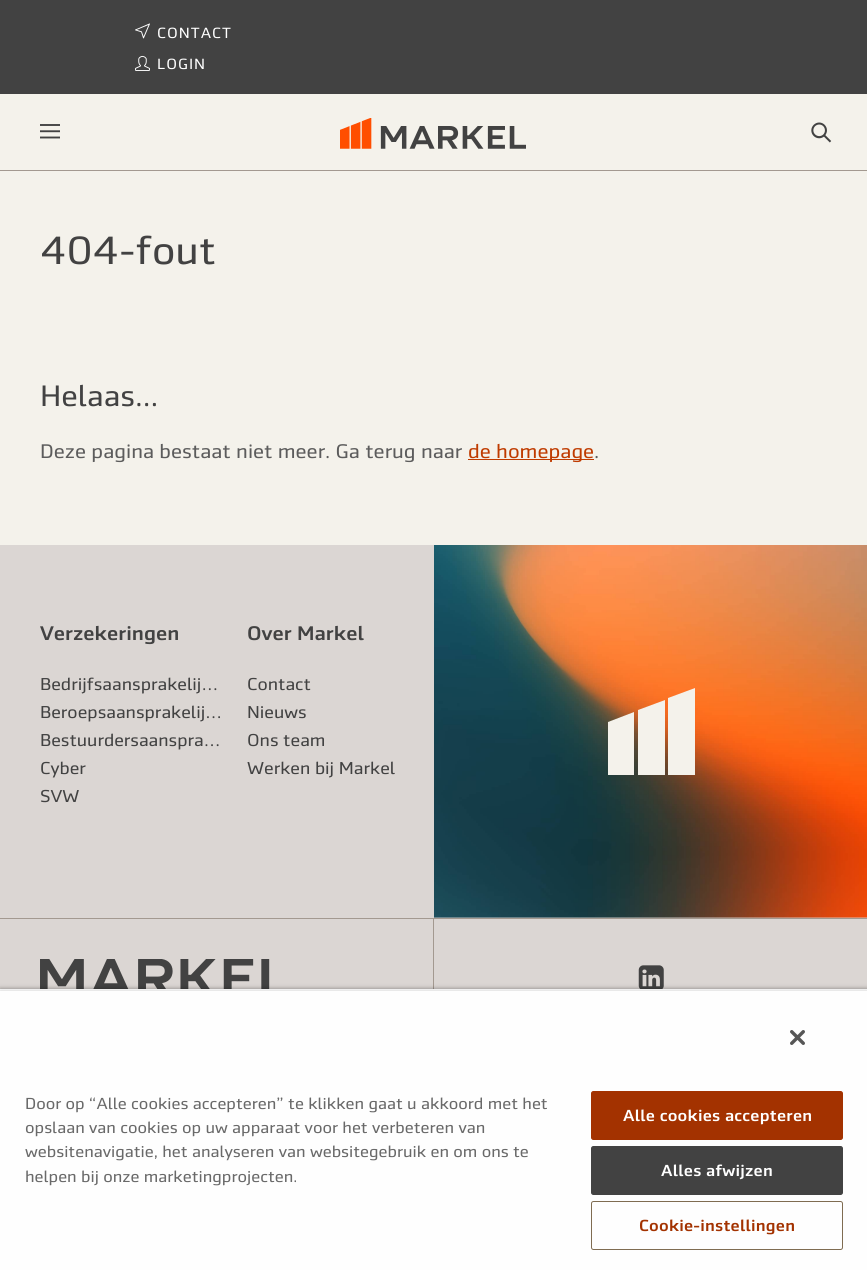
import math
import cairocffi as cairo

surface = cairo.ImageSurface(cairo.FORMAT_RGB24, 867, 1270)
ctx = cairo.Context(surface)
options = cairo.FontOptions()
options.set_hint_metrics(cairo.HINT_METRICS_OFF)
options.set_hint_style(cairo.HINT_STYLE_NONE)
ctx.set_font_options(options)
ctx.set_miter_limit(4)


def rgb(r, g, b):
    ctx.set_source_rgb(r / 255, g / 255, b / 255)


def face(family, size, italic, bold):
    ctx.select_font_face(family, cairo.FONT_SLANT_ITALIC if italic else cairo.FONT_SLANT_NORMAL, cairo.FONT_WEIGHT_BOLD if bold else cairo.FONT_WEIGHT_NORMAL)
    ctx.set_font_size(size)


def label(x, y, s):
    ctx.move_to(x, y)
    ctx.show_text(s)


def tracked(x, y, s, letter, word):
    ctx.move_to(x, y)
    for ch in s:
        ctx.show_text(ch)
        ctx.rel_move_to(letter + word * (ch == ' '), 0)


def rect(x, y, w, h):
    ctx.rectangle(x, y, w, h)
    ctx.fill()


def rrect(x, y, w, h, r):
    ctx.new_sub_path()
    for i, (u, v) in enumerate([(x + w - r, y + h - r), (x + r, y + h - r), (x + r, y + r), (x + w - r, y + r)]):
        ctx.arc(u, v, r, i * math.pi / 2, (i + 1) * math.pi / 2)
    ctx.close_path()


def soft_shadow(x, y, w, h, r, blur, alpha):
    ctx.push_group_with_content(cairo.CONTENT_ALPHA)
    ctx.set_operator(cairo.OPERATOR_SOURCE)
    for i in range(15, -16, -2):
        e = blur * i / 6
        if min(w, h) + 2 * e > 0:
            ctx.set_source_rgba(0, 0, 0, alpha * math.erfc((i - 1) / 8.5) / 2)
            rrect(x - e, y - e, w + 2 * e, h + 2 * e, max(0, min(r + e + blur * .6, min(w, h) / 2 + e)))
            ctx.fill()
    ctx.mask(ctx.pop_group())


def image(path, x, y, w, h):
    ctx.save()
    ctx.set_source_surface(cairo.ImageSurface.create_from_png(path), x, y)
    ctx.rectangle(x, y, w, h)
    ctx.fill()
    ctx.restore()


rgb(244, 242, 235)
ctx.paint()
rgb(66, 66, 66)
rect(0, 0, 867, 94)
image('image0.png', 135, 23, 15, 16)
face('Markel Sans', 15, 0, 0)
rgb(255, 255, 255)
tracked(157, 38, 'CONTACT', 1, 0)
image('image1.png', 135, 55, 15, 16)
tracked(157, 69, 'LOGIN', 1, 0)
rgb(163, 153, 144)
rect(0, 170, 867, 1)
image('image2.png', 40, 124, 20, 15)
image('image3.png', 340, 118, 186, 31)
image('image4.png', 811, 122, 21, 21)
face('Markel Sans', 40, 0, 0)
rgb(66, 66, 66)
label(40, 264, '404-fout')
face('Markel Sans', 30, 0, 0)
label(40, 406, 'Helaas...')
face('Markel Sans', 20, 0, 0)
rgb(92, 92, 92)
label(40, 458, 'Deze pagina bestaat niet meer. Ga terug naar')
rgb(191, 59, 0)
rect(468, 459, 126, 1)
label(468, 458, 'de homepage')
rgb(92, 92, 92)
label(594, 458, '.')
rgb(219, 214, 211)
rect(0, 545, 867, 373)
rgb(163, 153, 144)
rect(0, 918, 867, 1)
face('Markel Sans Medium', 20, 0, 0)
rgb(66, 66, 66)
label(40, 640, 'Verzekeringen')
face('Markel Sans', 17.5, 0, 0)
label(40, 690, 'Bedrijfsaansprakelij…')
label(40, 718, 'Beroepsaansprakelij…')
label(40, 746, 'Bestuurdersaanspra…')
label(40, 774, 'Cyber')
label(40, 802, 'SVW')
face('Markel Sans Medium', 20, 0, 0)
label(247, 640, 'Over Markel')
face('Markel Sans', 17.5, 0, 0)
label(247, 690, 'Contact')
label(247, 718, 'Nieuws')
label(247, 746, 'Ons team')
label(247, 774, 'Werken bij Markel')
image('image5.png', 434, 545, 433, 373)
rgb(244, 242, 235)
ctx.new_path()
ctx.move_to(634, 775)
ctx.line_to(608, 775)
ctx.line_to(608, 722)
ctx.line_to(634, 712)
ctx.close_path()
ctx.move_to(665, 700)
ctx.line_to(638, 710)
ctx.line_to(638, 775)
ctx.line_to(665, 775)
ctx.close_path()
ctx.move_to(695, 688)
ctx.line_to(668, 698)
ctx.line_to(668, 775)
ctx.line_to(695, 775)
ctx.close_path()
ctx.fill()
rgb(219, 214, 211)
rect(0, 919, 867, 70)
rgb(163, 153, 144)
rect(433, 919, 1, 70)
image('image6.png', 40, 959, 230, 30)
image('image7.png', 638, 965, 26, 24)
rgb(0, 0, 0)
soft_shadow(0, 989, 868, 281, 0, 2.5, 0.35)
rgb(254, 254, 254)
rect(0, 989, 867, 2)
rgb(0, 0, 0)
soft_shadow(0, 991, 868, 279, 0, 2.5, 0.2)
rgb(254, 254, 254)
rect(0, 991, 867, 279)
image('image8.png', 790, 1030, 15, 15)
face('Markel Sans', 16.25, 0, 0)
rgb(105, 105, 105)
label(25, 1109, 'Door op “Alle cookies accepteren” te klikken gaat u akkoord met het')
label(25, 1133, 'opslaan van cookies op uw apparaat voor het verbeteren van')
label(25, 1157, 'websitenavigatie, het analyseren van websitegebruik en om ons te')
label(25, 1182, 'helpen bij onze marketingprojecten.')
rgb(163, 50, 0)
rrect(591.5, 1091.5, 251, 48, 2)
ctx.fill_preserve()
ctx.set_line_width(1)
ctx.stroke()
face('Markel Sans Medium', 16.25, 0, 0)
rgb(255, 255, 255)
tracked(623, 1121, 'Alle cookies accepteren', 0.2, 0)
rgb(66, 66, 66)
rrect(591.5, 1146.5, 251, 48, 2)
ctx.fill_preserve()
ctx.stroke()
rgb(255, 255, 255)
tracked(661, 1176, 'Alles afwijzen', 0.2, 0)
rrect(591.5, 1201.5, 251, 48, 2)
rgb(127, 108, 81)
ctx.stroke()
rgb(163, 50, 0)
tracked(639, 1231, 'Cookie-instellingen', 0.2, 0)
surface.write_to_png('render.png')
